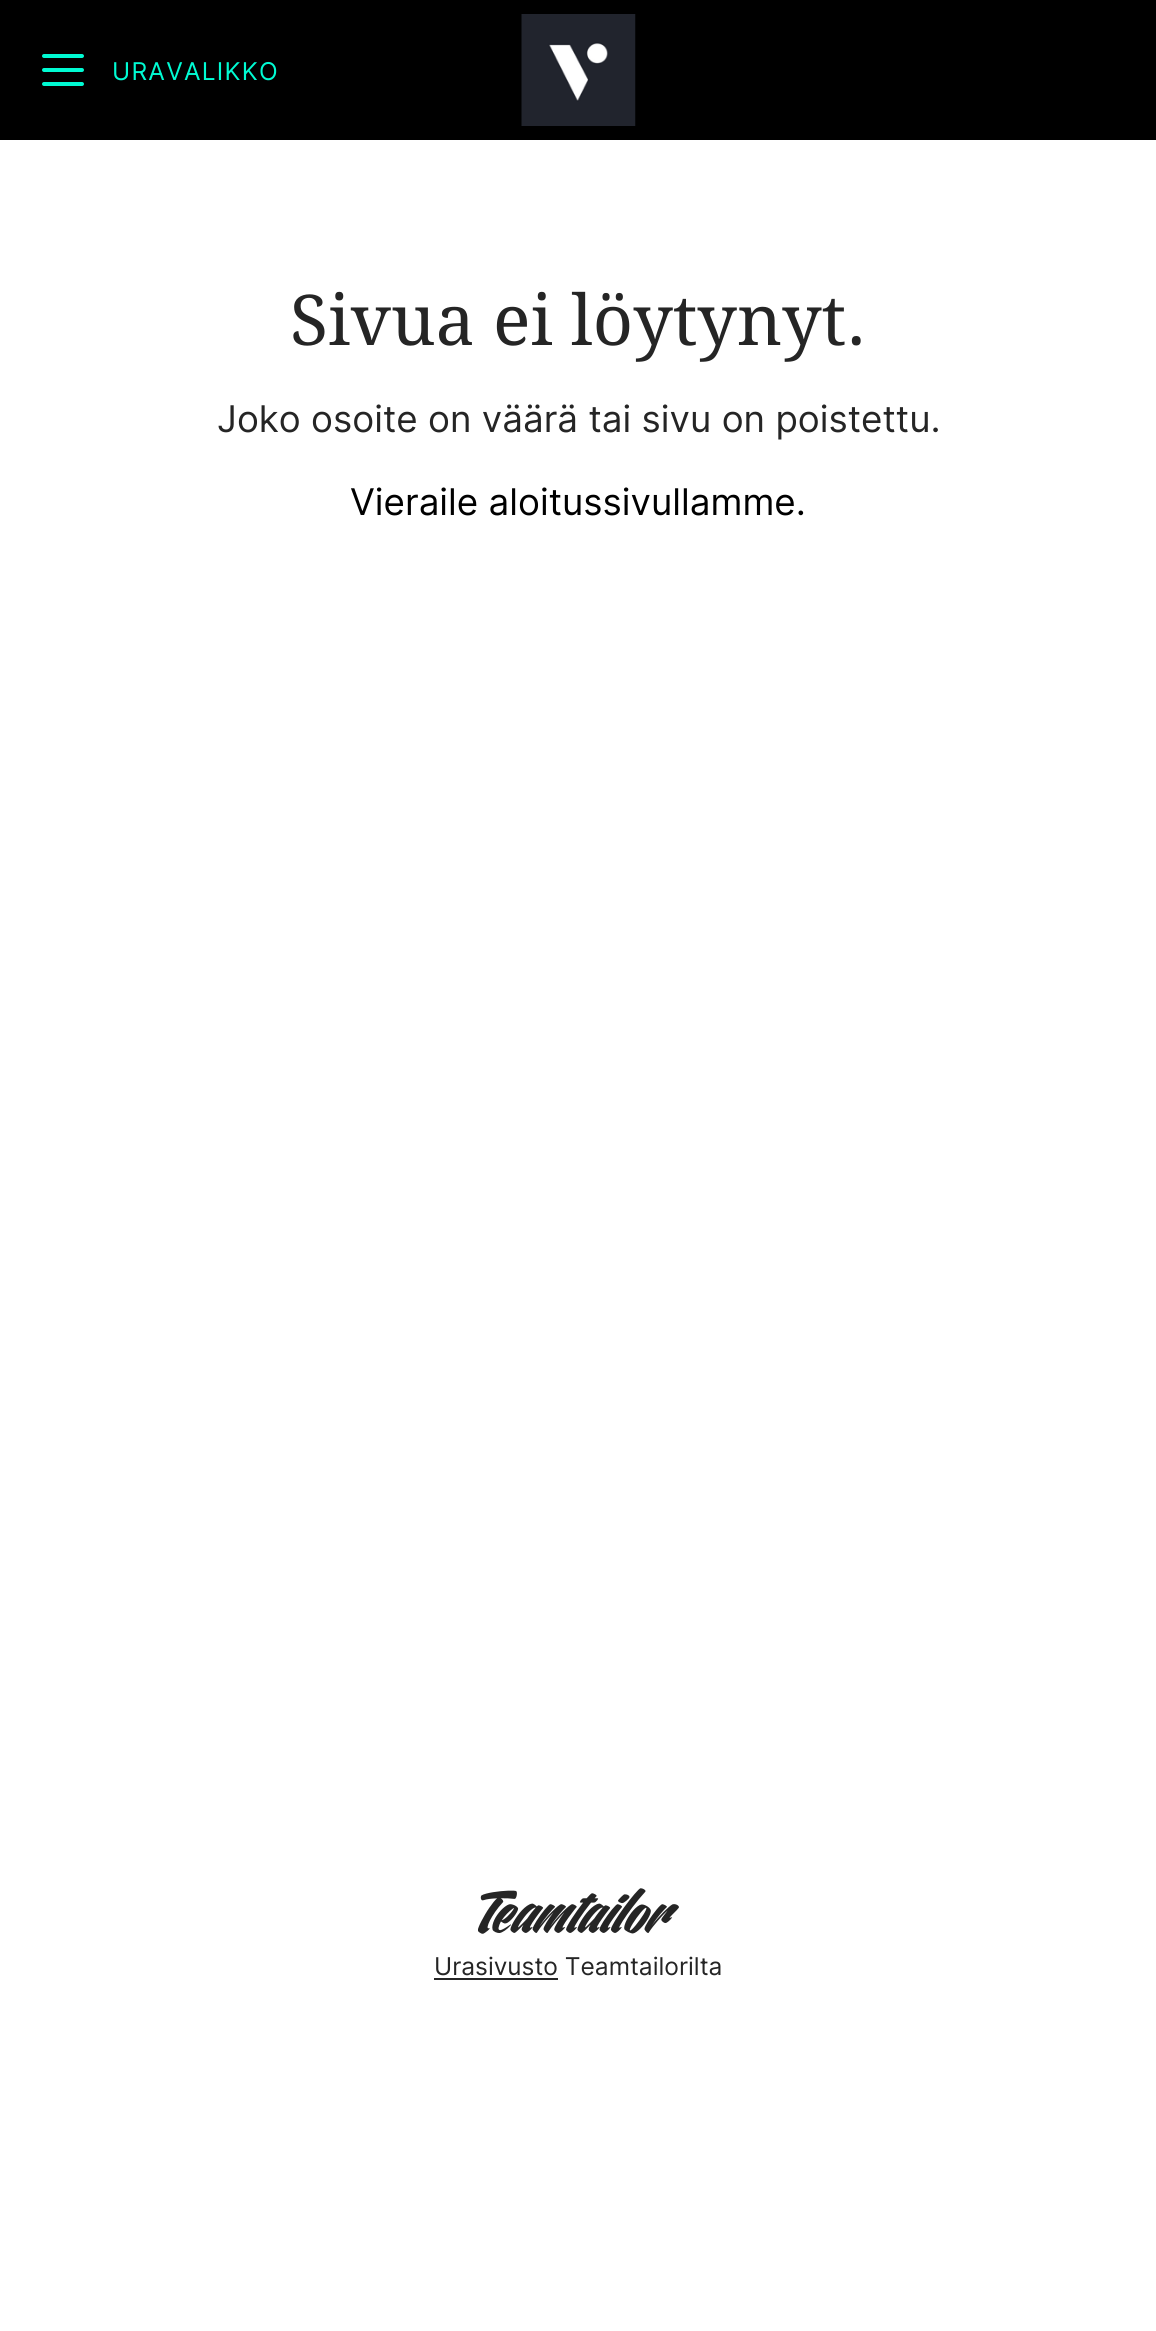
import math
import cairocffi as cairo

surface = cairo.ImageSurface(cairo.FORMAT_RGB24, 1156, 2331)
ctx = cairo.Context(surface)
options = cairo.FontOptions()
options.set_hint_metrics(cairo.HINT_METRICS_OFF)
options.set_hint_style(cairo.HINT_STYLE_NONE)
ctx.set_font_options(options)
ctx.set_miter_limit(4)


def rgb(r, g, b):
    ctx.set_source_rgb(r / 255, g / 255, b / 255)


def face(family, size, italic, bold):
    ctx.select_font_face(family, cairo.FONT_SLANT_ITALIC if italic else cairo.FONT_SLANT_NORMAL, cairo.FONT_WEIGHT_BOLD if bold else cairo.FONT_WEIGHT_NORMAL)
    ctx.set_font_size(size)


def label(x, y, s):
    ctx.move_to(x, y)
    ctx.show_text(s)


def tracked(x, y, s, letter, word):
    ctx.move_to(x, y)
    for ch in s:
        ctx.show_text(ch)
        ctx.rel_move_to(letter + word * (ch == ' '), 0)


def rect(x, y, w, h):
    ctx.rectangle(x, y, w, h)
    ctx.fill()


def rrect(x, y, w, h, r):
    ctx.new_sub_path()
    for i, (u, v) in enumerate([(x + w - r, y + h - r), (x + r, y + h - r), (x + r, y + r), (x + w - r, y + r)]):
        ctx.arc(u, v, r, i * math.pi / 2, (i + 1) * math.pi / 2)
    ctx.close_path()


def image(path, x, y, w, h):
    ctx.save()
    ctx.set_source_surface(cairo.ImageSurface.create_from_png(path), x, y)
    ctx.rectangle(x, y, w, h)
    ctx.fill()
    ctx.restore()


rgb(255, 255, 255)
ctx.paint()
rgb(0, 0, 0)
rect(0, 0, 1156, 140)
rgb(0, 251, 211)
rrect(42, 54, 42, 4, 2)
ctx.fill()
rrect(42, 68, 42, 4, 2)
ctx.fill()
rrect(42, 82, 42, 4, 2)
ctx.fill()
face('Inter', 24.5, 0, 0)
tracked(112, 80, 'URAVALIKKO', 1.25, 0)
image('image0.png', 521, 14, 115, 112)
face('Droid Serif', 70, 0, 0)
rgb(37, 37, 37)
label(290, 345, 'Sivua ei löytynyt.')
face('Inter', 36.75, 0, 0)
label(217, 432, 'Joko osoite on väärä tai sivu on poistettu.')
rgb(0, 0, 0)
label(350, 515, 'Vieraile aloitussivullamme.')
image('image1.png', 478, 1888, 201, 46)
face('Inter', 24.5, 0, 0)
rgb(37, 37, 37)
label(434, 1975, 'Urasivusto Teamtailorilta')
rect(434, 1978, 124, 2)
surface.write_to_png('render.png')
